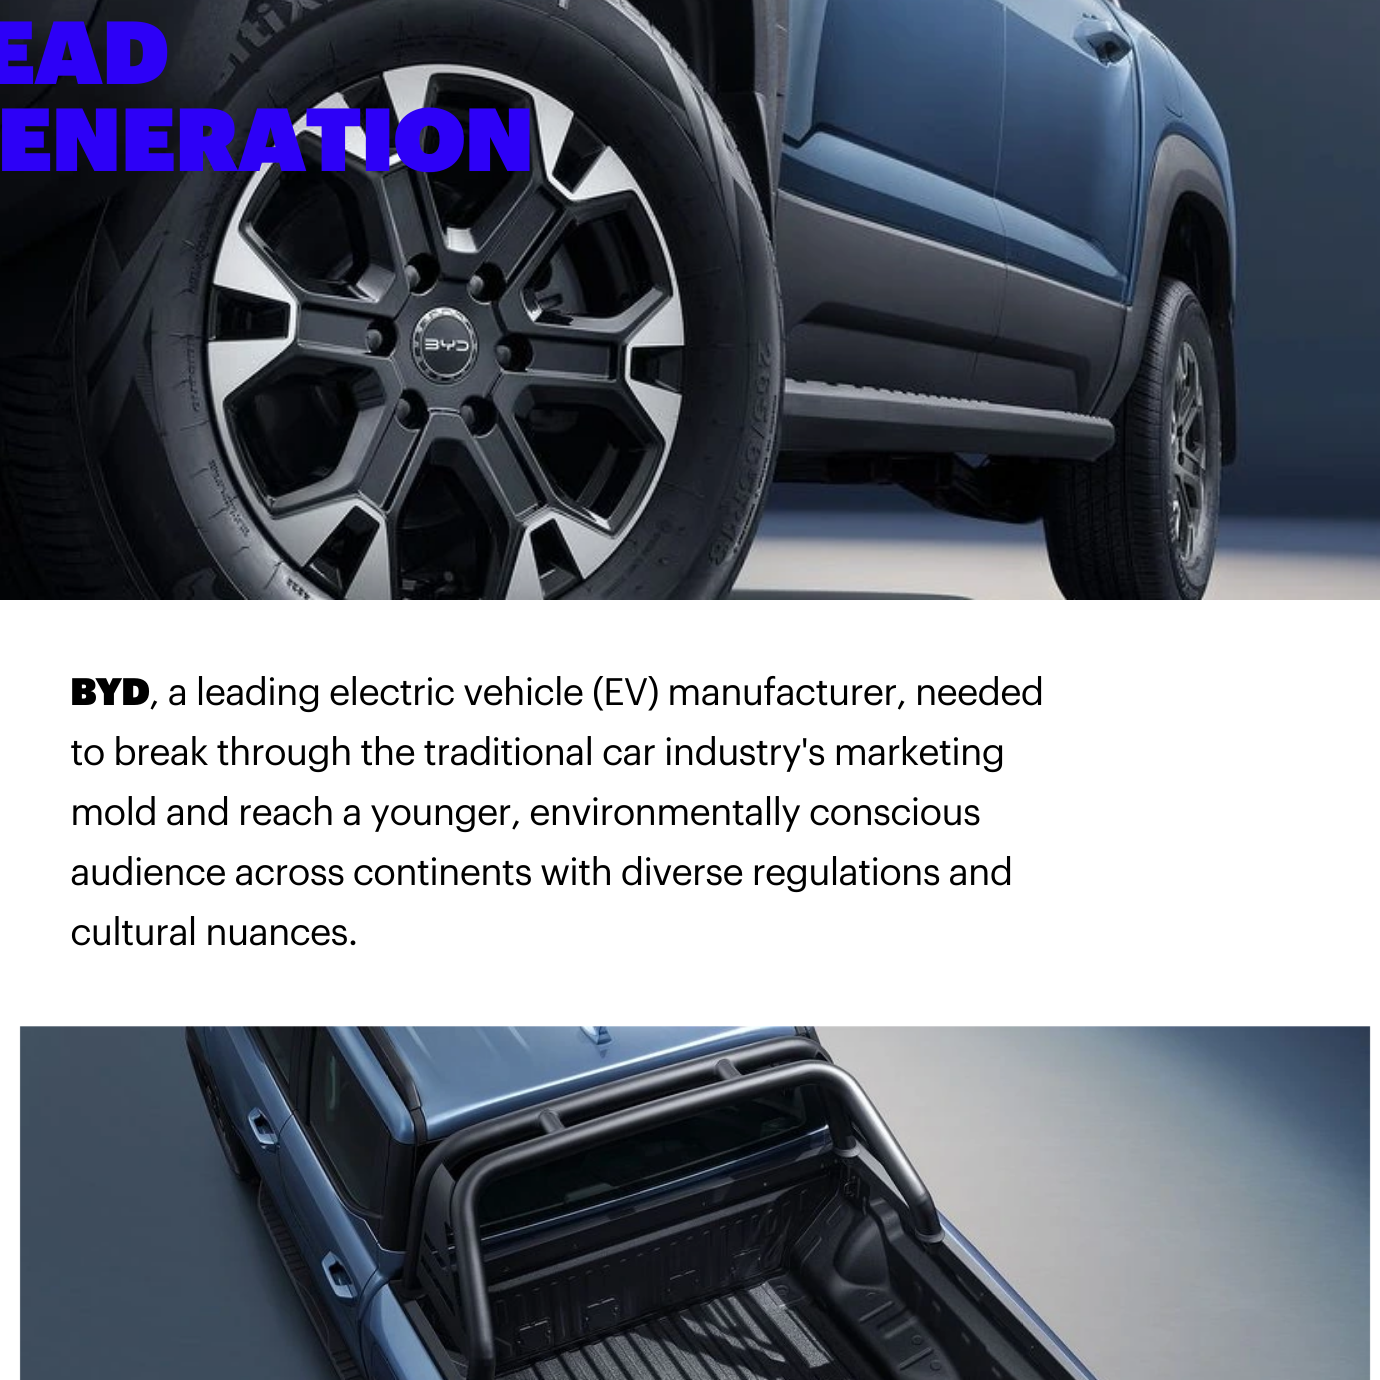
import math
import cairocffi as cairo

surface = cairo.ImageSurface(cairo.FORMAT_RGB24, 1380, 1380)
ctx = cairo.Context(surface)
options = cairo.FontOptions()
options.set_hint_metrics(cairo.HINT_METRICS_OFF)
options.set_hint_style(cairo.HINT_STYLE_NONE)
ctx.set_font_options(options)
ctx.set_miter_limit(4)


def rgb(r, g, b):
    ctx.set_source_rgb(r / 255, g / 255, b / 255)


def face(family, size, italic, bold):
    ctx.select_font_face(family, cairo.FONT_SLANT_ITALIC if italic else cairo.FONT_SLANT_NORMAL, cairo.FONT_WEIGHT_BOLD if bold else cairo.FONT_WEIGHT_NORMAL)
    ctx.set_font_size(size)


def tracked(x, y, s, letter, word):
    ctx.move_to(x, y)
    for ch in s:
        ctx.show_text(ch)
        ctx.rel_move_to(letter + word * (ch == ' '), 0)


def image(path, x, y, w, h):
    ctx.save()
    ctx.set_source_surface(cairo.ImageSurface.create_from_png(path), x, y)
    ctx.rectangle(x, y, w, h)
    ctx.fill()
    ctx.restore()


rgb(255, 255, 255)
ctx.paint()
image('image0.png', 0, 0, 1380, 600)
face('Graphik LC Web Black', 87.5, 0, 0)
rgb(45, 0, 247)
tracked(-20, 84, 'EAD', -1.25, 0)
tracked(-3, 171, 'ENERATION', -1.25, 0)
face('Graphik LC Web Black', 37.5, 0, 0)
rgb(0, 0, 0)
tracked(70, 705, 'BYD', -1.25, 0)
face('Graphik LC Web', 37.5, 0, 0)
tracked(149, 705, ', a leading electric vehicle (EV) manufacturer, needed', -1.25, 0)
tracked(70, 765, 'to break through the traditional car industry\'s marketing', -1.25, 0)
tracked(70, 825, 'mold and reach a younger, environmentally conscious', -1.25, 0)
tracked(70, 885, 'audience across continents with diverse regulations and', -1.25, 0)
tracked(70, 945, 'cultural nuances.', -1.25, 0)
image('image1.png', 19, 1026, 1352, 354)
surface.write_to_png('render.png')
